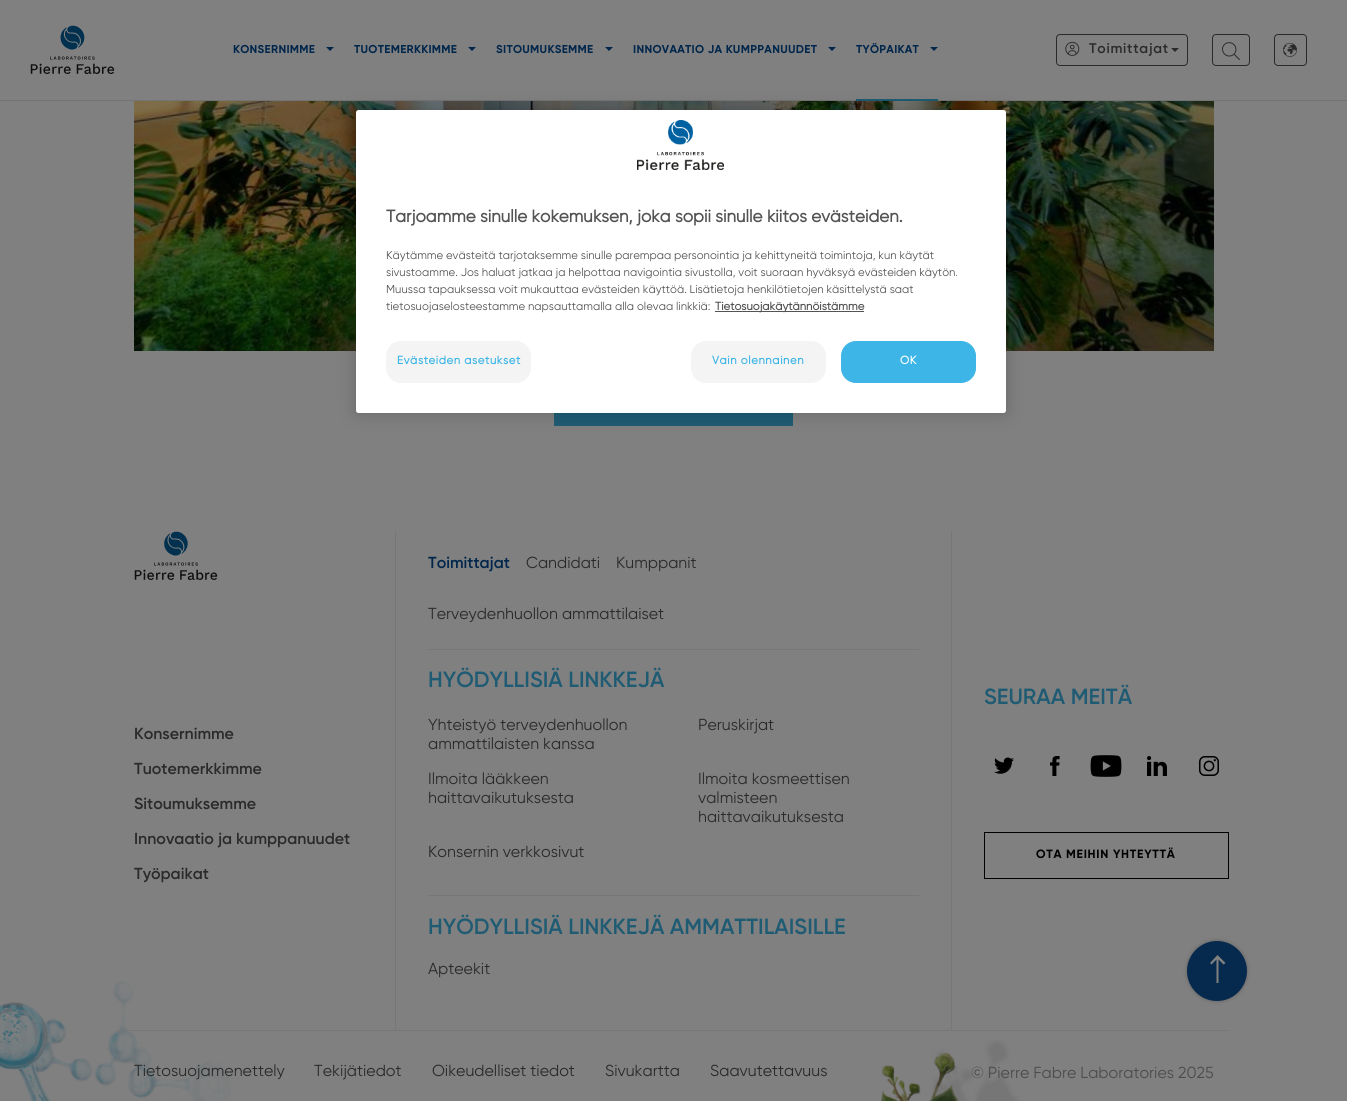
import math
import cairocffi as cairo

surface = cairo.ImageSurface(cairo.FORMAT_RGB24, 1347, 1101)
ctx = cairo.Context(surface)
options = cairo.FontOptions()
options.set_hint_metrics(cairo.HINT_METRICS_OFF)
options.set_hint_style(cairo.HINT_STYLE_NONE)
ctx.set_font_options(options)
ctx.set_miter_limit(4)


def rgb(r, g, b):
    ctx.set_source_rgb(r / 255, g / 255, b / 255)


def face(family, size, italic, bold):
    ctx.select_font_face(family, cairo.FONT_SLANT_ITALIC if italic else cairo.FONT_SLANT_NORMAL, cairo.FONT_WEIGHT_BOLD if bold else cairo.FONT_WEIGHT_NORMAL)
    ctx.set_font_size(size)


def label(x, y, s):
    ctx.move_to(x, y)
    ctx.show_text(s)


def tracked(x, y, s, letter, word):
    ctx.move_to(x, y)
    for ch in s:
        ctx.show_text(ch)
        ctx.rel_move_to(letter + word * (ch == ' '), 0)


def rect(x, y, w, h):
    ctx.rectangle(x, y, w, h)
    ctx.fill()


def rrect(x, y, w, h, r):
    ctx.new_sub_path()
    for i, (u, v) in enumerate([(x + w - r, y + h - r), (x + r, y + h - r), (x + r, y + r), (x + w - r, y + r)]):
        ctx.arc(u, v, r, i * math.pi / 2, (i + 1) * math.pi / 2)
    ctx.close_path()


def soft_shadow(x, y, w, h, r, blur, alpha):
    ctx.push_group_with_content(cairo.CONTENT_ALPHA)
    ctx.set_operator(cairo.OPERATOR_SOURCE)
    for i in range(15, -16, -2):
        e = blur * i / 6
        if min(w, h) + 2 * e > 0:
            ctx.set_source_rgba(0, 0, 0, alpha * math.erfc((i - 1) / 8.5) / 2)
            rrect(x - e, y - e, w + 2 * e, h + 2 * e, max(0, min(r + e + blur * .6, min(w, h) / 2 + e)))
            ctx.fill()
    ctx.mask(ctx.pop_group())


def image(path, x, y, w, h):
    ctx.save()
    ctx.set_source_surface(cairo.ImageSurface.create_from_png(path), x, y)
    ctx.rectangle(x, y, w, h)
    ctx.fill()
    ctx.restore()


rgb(128, 128, 128)
ctx.paint()
rgb(116, 116, 116)
rect(0, 100, 1347, 1)
image('image0.png', 30, 25, 85, 49)
face('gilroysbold', 11, 0, 1)
rgb(0, 38, 75)
tracked(233, 53, 'KONSERNIMME', 0.6, 0)
ctx.new_path()
ctx.move_to(326, 47)
ctx.line_to(334, 47)
ctx.line_to(330, 51)
ctx.close_path()
ctx.fill()
tracked(354, 53, 'TUOTEMERKKIMME', 0.6, 0)
ctx.new_path()
ctx.move_to(468, 47)
ctx.line_to(476, 47)
ctx.line_to(472, 51)
ctx.close_path()
ctx.fill()
tracked(496, 53, 'SITOUMUKSEMME', 0.6, 0)
ctx.new_path()
ctx.move_to(605, 47)
ctx.line_to(613, 47)
ctx.line_to(609, 51)
ctx.close_path()
ctx.fill()
tracked(633, 53, 'INNOVAATIO JA KUMPPANUUDET', 0.6, 0)
ctx.new_path()
ctx.move_to(828, 47)
ctx.line_to(836, 47)
ctx.line_to(832, 51)
ctx.close_path()
ctx.fill()
rgb(31, 91, 115)
rect(856, 99, 82, 2)
rgb(0, 38, 75)
tracked(856, 53, 'TYÖPAIKAT', 0.6, 0)
ctx.new_path()
ctx.move_to(930, 47)
ctx.line_to(938, 47)
ctx.line_to(934, 51)
ctx.close_path()
ctx.fill()
rrect(1056.5, 34.5, 131, 31, 3.5)
rgb(42, 42, 42)
ctx.set_line_width(1)
ctx.stroke()
image('image1.png', 1065, 41, 15, 15)
face('gilroysbold', 14, 0, 0)
tracked(1089, 53, 'Toimittajat', 0.75, 0)
ctx.new_path()
ctx.move_to(1171, 48)
ctx.line_to(1179, 48)
ctx.line_to(1175, 52)
ctx.close_path()
ctx.fill()
rrect(1212.5, 34.5, 37, 31, 3.5)
ctx.stroke()
image('image2.png', 1222, 42, 18, 18)
rrect(1274.5, 34.5, 32, 31, 3.5)
ctx.stroke()
image('image3.png', 1283, 42, 14, 15)
image('image4.png', 134, 101, 1080, 250)
rgb(31, 91, 115)
rect(554, 413, 239, 13)
image('image11.png', 0, 981, 231, 120)
rgb(119, 119, 119)
rect(119, 1030, 1110, 1)
rect(428, 649, 491, 1)
face('gilroysbold', 16, 0, 0)
rgb(0, 38, 75)
label(428, 568, 'Toimittajat')
face('gilroy', 16, 0, 0)
rgb(42, 42, 42)
label(526, 568, 'Candidati')
label(616, 568, 'Kumppanit')
label(428, 619, 'Terveydenhuollon ammattilaiset')
rgb(119, 119, 119)
rect(395, 531, 1, 500)
image('image5.png', 134, 531, 84, 49)
face('gilroysbold', 16, 0, 0)
rgb(42, 42, 42)
label(134, 739, 'Konsernimme')
label(134, 774, 'Tuotemerkkimme')
label(134, 809, 'Sitoumuksemme')
label(134, 844, 'Innovaatio ja kumppanuudet')
label(134, 879, 'Työpaikat')
face('gilroysbold', 22, 0, 0)
rgb(31, 91, 115)
label(428, 687, 'HYÖDYLLISIÄ LINKKEJÄ')
face('gilroy', 16, 0, 0)
rgb(42, 42, 42)
label(428, 730, 'Yhteistyö terveydenhuollon')
label(428, 749, 'ammattilaisten kanssa')
label(698, 730, 'Peruskirjat')
label(428, 784, 'Ilmoita lääkkeen')
label(428, 803, 'haittavaikutuksesta')
label(698, 784, 'Ilmoita kosmeettisen')
label(698, 803, 'valmisteen')
label(698, 822, 'haittavaikutuksesta')
label(428, 857, 'Konsernin verkkosivut')
rgb(119, 119, 119)
rect(951, 531, 1, 500)
face('gilroysbold', 22, 0, 0)
rgb(31, 91, 115)
label(984, 704, 'SEURAA MEITÄ')
image('image6.png', 994, 757, 20, 17)
image('image7.png', 1050, 756, 10, 20)
image('image8.png', 1090, 755, 32, 22)
image('image9.png', 1147, 756, 20, 20)
image('image10.png', 1199, 756, 20, 20)
ctx.rectangle(984.5, 832.5, 244, 46)
rgb(0, 0, 0)
ctx.stroke()
face('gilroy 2', 12, 0, 0)
tracked(1036, 858, 'OTA MEIHIN YHTEYTTÄ', 0.75, 0)
rgb(119, 119, 119)
rect(428, 895, 491, 1)
face('gilroysbold', 22, 0, 0)
rgb(31, 91, 115)
label(428, 934, 'HYÖDYLLISIÄ LINKKEJÄ AMMATTILAISILLE')
face('gilroy', 16, 0, 0)
rgb(42, 42, 42)
label(428, 974, 'Apteekit')
rgb(64, 64, 64)
soft_shadow(1187, 941, 60, 60, 30, 2, 0.5)
rgb(6, 42, 78)
ctx.arc(1217, 971, 30, 0, 2 * math.pi)
ctx.fill()
rgb(128, 128, 128)
ctx.set_fill_rule(cairo.FILL_RULE_EVEN_ODD)
ctx.new_path()
ctx.move_to(1210, 963)
ctx.line_to(1211.5, 964.5)
ctx.line_to(1216.5, 959.5)
ctx.line_to(1216.5, 983)
ctx.line_to(1218.5, 983)
ctx.line_to(1218.5, 959.5)
ctx.line_to(1223.5, 964.5)
ctx.line_to(1225.5, 963)
ctx.line_to(1217.5, 955)
ctx.close_path()
ctx.fill()
image('image12.png', 881, 1040, 139, 61)
rgb(42, 42, 42)
label(134, 1076, 'Tietosuojamenettely')
label(314, 1076, 'Tekijätiedot')
label(432, 1076, 'Oikeudelliset tiedot')
label(605, 1076, 'Sivukartta')
label(710, 1076, 'Saavutettavuus')
rgb(76, 76, 76)
label(971, 1078, '© Pierre Fabre Laboratories 2025')
rgb(0, 0, 0)
soft_shadow(356, 110, 650, 303, 2.5, 9, 0.2)
rgb(255, 255, 255)
rrect(356, 110, 650, 303, 2.5)
ctx.fill()
image('image13.png', 637, 120, 87, 50)
face('gilroy', 17.1, 0, 1)
rgb(83, 83, 83)
label(386, 222, 'Tarjoamme sinulle kokemuksen, joka sopii sinulle kiitos evästeiden.')
face('gilroy', 11.38, 0, 0)
label(386, 259, 'Käytämme evästeitä tarjotaksemme sinulle parempaa personointia ja kehittyneitä toimintoja, kun käytät')
label(386, 276, 'sivustoamme. Jos haluat jatkaa ja helpottaa navigointia sivustolla, voit suoraan hyväksyä evästeiden käytön.')
label(386, 293, 'Muussa tapauksessa voit mukauttaa evästeiden käyttöä. Lisätietoja henkilötietojen käsittelystä saat')
label(386, 310, 'tietosuojaselosteestamme napsauttamalla alla olevaa linkkiä:')
rect(715, 311, 149, 1)
face('gilroy', 11.38, 0, 1)
label(715, 310, 'Tietosuojakäytännöistämme')
rgb(244, 244, 244)
rrect(386.5, 341.5, 144, 41, 14.5)
ctx.fill_preserve()
ctx.stroke()
rgb(61, 181, 230)
tracked(397, 364, 'Evästeiden asetukset', 0.6, 0)
rgb(244, 244, 244)
rrect(691.5, 341.5, 134, 41, 14.5)
ctx.fill_preserve()
ctx.stroke()
rgb(61, 181, 230)
tracked(712, 364, 'Vain olennainen', 0.6, 0)
rrect(841.5, 341.5, 134, 41, 14.5)
ctx.fill_preserve()
ctx.stroke()
rgb(255, 255, 255)
tracked(900, 364, 'OK', 0.6, 0)
surface.write_to_png('render.png')
